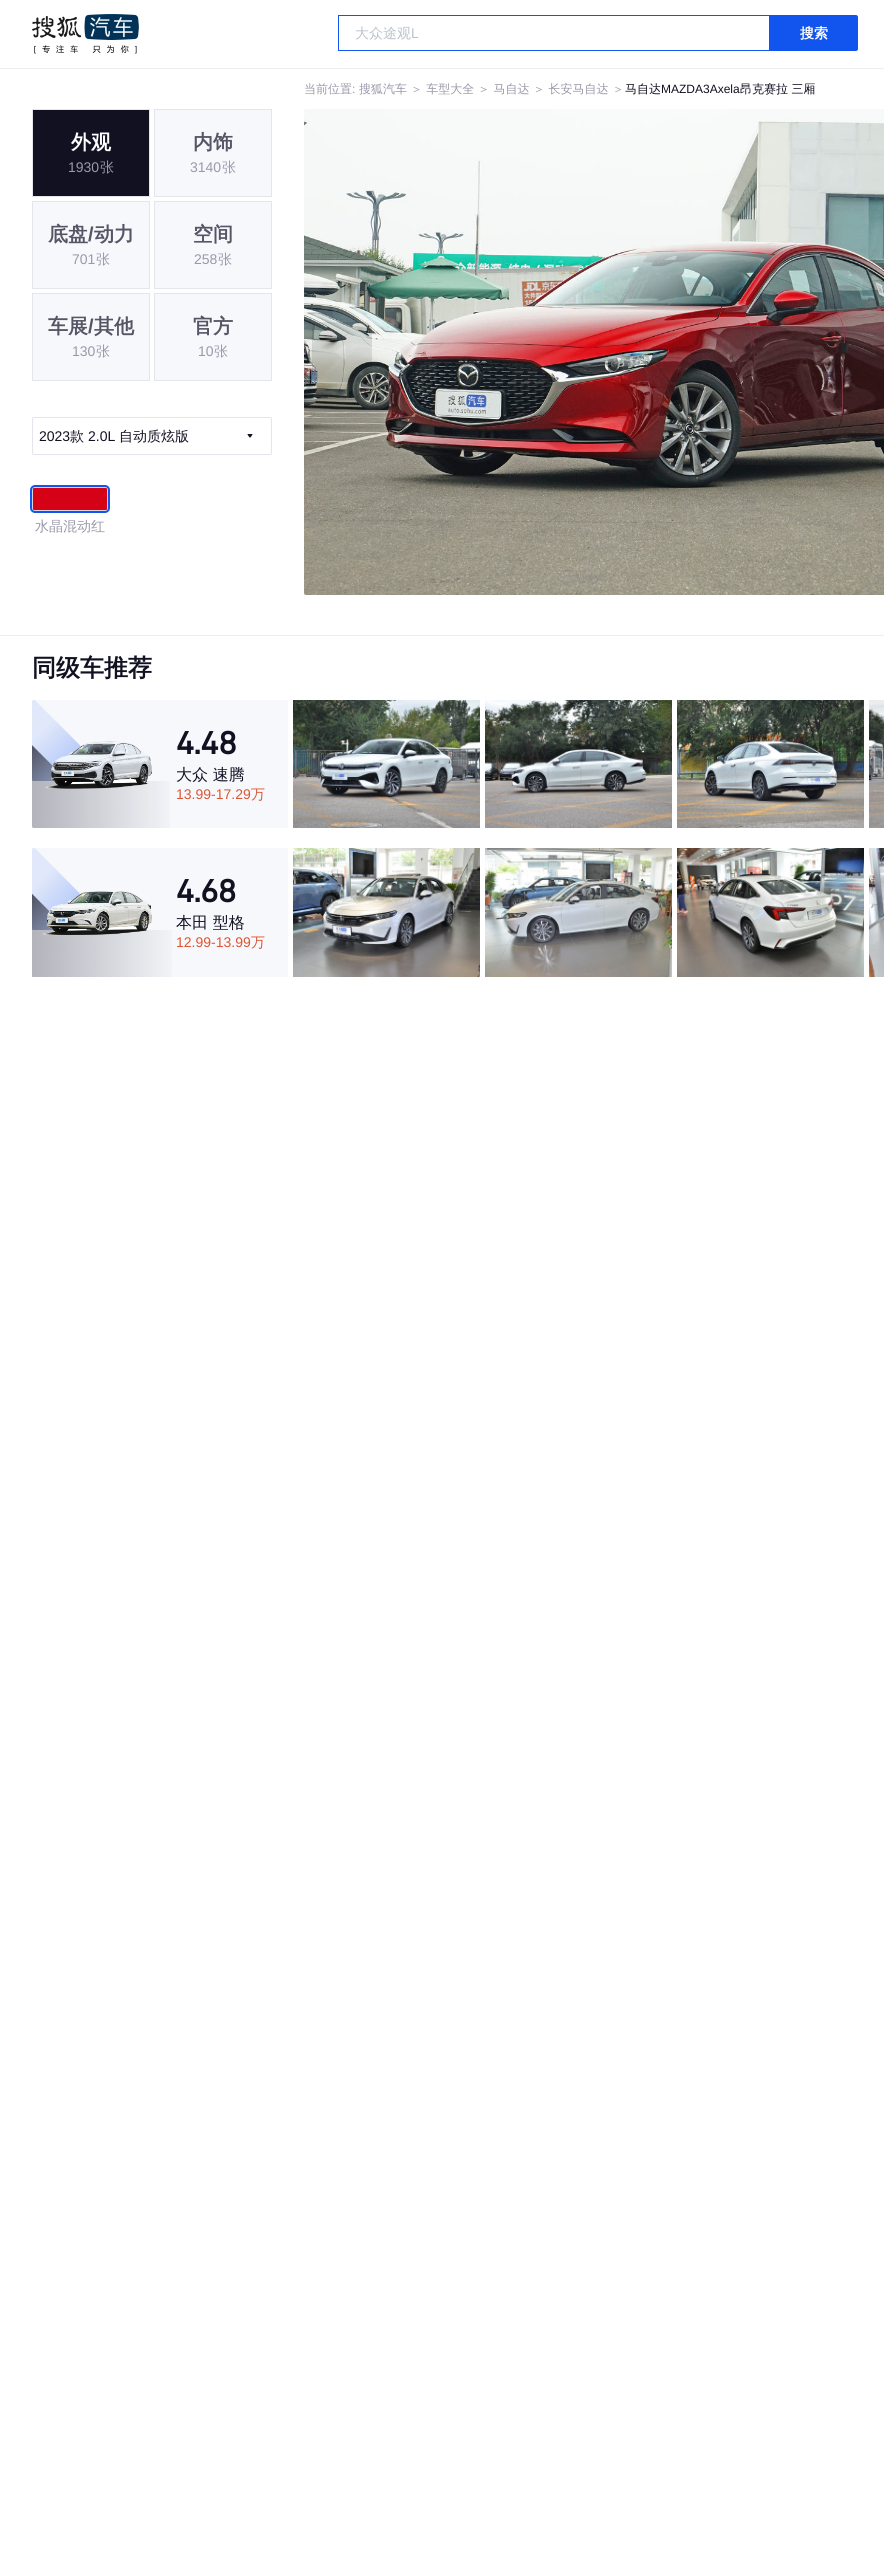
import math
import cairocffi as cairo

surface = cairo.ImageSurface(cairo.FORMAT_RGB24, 884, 2549)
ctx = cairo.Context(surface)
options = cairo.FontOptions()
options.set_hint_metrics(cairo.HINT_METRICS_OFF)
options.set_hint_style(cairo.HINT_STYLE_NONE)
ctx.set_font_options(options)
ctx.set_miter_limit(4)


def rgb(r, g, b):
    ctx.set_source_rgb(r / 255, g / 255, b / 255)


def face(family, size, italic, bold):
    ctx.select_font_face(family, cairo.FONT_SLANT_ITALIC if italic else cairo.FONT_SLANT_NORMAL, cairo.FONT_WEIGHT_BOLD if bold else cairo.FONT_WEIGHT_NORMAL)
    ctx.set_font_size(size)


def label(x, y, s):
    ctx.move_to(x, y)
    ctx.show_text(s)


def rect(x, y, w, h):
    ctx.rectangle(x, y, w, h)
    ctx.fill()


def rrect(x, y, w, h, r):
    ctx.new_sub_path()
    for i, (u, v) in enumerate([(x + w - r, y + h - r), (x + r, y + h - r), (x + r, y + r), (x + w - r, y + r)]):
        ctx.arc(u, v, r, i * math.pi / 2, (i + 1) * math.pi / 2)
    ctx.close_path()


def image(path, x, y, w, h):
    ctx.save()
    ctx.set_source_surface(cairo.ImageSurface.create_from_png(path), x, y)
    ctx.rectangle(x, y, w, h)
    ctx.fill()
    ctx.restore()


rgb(255, 255, 255)
ctx.paint()
rgb(238, 238, 240)
rect(0, 68, 884, 1)
image('image0.png', 32, 14, 107, 40)
ctx.rectangle(338.5, 15.5, 431, 35)
rgb(17, 85, 238)
ctx.set_line_width(1)
ctx.stroke()
face('WenQuanYi Zen Hei Medium', 14, 0, 0)
rgb(187, 194, 204)
label(355, 38, '大众途观')
face('Liberation Sans', 14, 0, 0)
label(411, 38, 'L')
rgb(17, 85, 238)
ctx.new_path()
ctx.move_to(770, 15)
ctx.line_to(856, 15)
ctx.curve_to(857, 15, 858, 16, 858, 17)
ctx.line_to(858, 49)
ctx.curve_to(858, 50, 857, 51, 856, 51)
ctx.line_to(770, 51)
ctx.close_path()
ctx.fill()
face('WenQuanYi Zen Hei', 14, 0, 1)
rgb(255, 255, 255)
label(800, 38, '搜索')
face('WenQuanYi Zen Hei Medium', 12, 0, 0)
rgb(153, 153, 170)
label(304, 93, '当前位置')
face('Liberation Sans', 12, 0, 0)
label(352, 93, ':')
face('WenQuanYi Zen Hei Medium', 12, 0, 0)
label(359, 93, '搜狐汽车 ＞ 车型大全 ＞ 马自达 ＞ 长安马自达 ＞')
rgb(17, 17, 34)
label(625, 93, '马自达')
face('Liberation Sans', 12, 0, 0)
label(661, 93, 'MAZDA3Axela')
face('WenQuanYi Zen Hei Medium', 12, 0, 0)
label(740, 93, '昂克赛拉 三厢')
ctx.rectangle(32.5, 109.5, 117, 87)
ctx.fill_preserve()
rgb(229, 229, 238)
ctx.stroke()
face('WenQuanYi Zen Hei', 20, 0, 1)
rgb(255, 255, 255)
label(71, 149, '外观')
face('Liberation Sans', 14, 0, 0)
rgb(153, 153, 170)
label(68, 172, '1930')
face('WenQuanYi Zen Hei Medium', 14, 0, 0)
label(100, 172, '张')
rgb(247, 248, 252)
ctx.rectangle(154.5, 109.5, 117, 87)
ctx.fill_preserve()
rgb(229, 229, 238)
ctx.stroke()
face('WenQuanYi Zen Hei', 20, 0, 1)
rgb(85, 85, 102)
label(193, 149, '内饰')
face('Liberation Sans', 14, 0, 0)
rgb(153, 153, 170)
label(190, 172, '3140')
face('WenQuanYi Zen Hei Medium', 14, 0, 0)
label(222, 172, '张')
rgb(247, 248, 252)
ctx.rectangle(32.5, 201.5, 117, 87)
ctx.fill_preserve()
rgb(229, 229, 238)
ctx.stroke()
face('WenQuanYi Zen Hei', 20, 0, 1)
rgb(85, 85, 102)
label(48, 241, '底盘')
face('Liberation Sans', 20, 0, 1)
label(88, 241, '/')
face('WenQuanYi Zen Hei', 20, 0, 1)
label(94, 241, '动力')
face('Liberation Sans', 14, 0, 0)
rgb(153, 153, 170)
label(72, 264, '701')
face('WenQuanYi Zen Hei Medium', 14, 0, 0)
label(96, 264, '张')
rgb(247, 248, 252)
ctx.rectangle(154.5, 201.5, 117, 87)
ctx.fill_preserve()
rgb(229, 229, 238)
ctx.stroke()
face('WenQuanYi Zen Hei', 20, 0, 1)
rgb(85, 85, 102)
label(193, 241, '空间')
face('Liberation Sans', 14, 0, 0)
rgb(153, 153, 170)
label(194, 264, '258')
face('WenQuanYi Zen Hei Medium', 14, 0, 0)
label(218, 264, '张')
rgb(247, 248, 252)
ctx.rectangle(32.5, 293.5, 117, 87)
ctx.fill_preserve()
rgb(229, 229, 238)
ctx.stroke()
face('WenQuanYi Zen Hei', 20, 0, 1)
rgb(85, 85, 102)
label(48, 333, '车展')
face('Liberation Sans', 20, 0, 1)
label(88, 333, '/')
face('WenQuanYi Zen Hei', 20, 0, 1)
label(94, 333, '其他')
face('Liberation Sans', 14, 0, 0)
rgb(153, 153, 170)
label(72, 356, '130')
face('WenQuanYi Zen Hei Medium', 14, 0, 0)
label(96, 356, '张')
rgb(247, 248, 252)
ctx.rectangle(154.5, 293.5, 117, 87)
ctx.fill_preserve()
rgb(229, 229, 238)
ctx.stroke()
face('WenQuanYi Zen Hei', 20, 0, 1)
rgb(85, 85, 102)
label(193, 333, '官方')
face('Liberation Sans', 14, 0, 0)
rgb(153, 153, 170)
label(198, 356, '10')
face('WenQuanYi Zen Hei Medium', 14, 0, 0)
label(214, 356, '张')
rrect(32.5, 417.5, 239, 37, 1.5)
rgb(229, 229, 238)
ctx.stroke()
face('Liberation Sans', 14, 0, 0)
rgb(17, 17, 34)
label(39, 441, '2023')
face('WenQuanYi Zen Hei Medium', 14, 0, 0)
label(70, 441, '款')
face('Liberation Sans', 14, 0, 0)
label(88, 441, '2.0L')
face('WenQuanYi Zen Hei Medium', 14, 0, 0)
label(119, 441, '自动质炫版')
image('image1.png', 247, 434, 6, 4)
rrect(32.5, 487.5, 75, 23, 1.5)
rgb(213, 213, 226)
ctx.stroke()
rgb(212, 1, 23)
rrect(33, 488, 74, 22, 1)
ctx.fill()
rrect(31, 486, 78, 26, 4)
rgb(17, 85, 238)
ctx.set_line_width(2)
ctx.stroke()
rgb(153, 153, 170)
label(35, 531, '水晶混动红')
image('image2.png', 304, 109, 580, 486)
ctx.set_source_rgba(0, 0, 0, 0.1)
rrect(312, 322, 60, 60, 8)
ctx.fill()
image('image3.png', 335, 345, 11, 14)
rgb(238, 238, 240)
rect(0, 635, 884, 1)
face('WenQuanYi Zen Hei', 24, 0, 1)
rgb(17, 17, 34)
label(32, 676, '同级车推荐')
rgb(247, 248, 252)
rect(32, 700, 256, 128)
image('image4.png', 32, 700, 138, 128)
image('image5.png', 45, 741, 107, 48)
face('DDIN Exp', 32, 0, 1)
rgb(17, 17, 34)
label(176, 754, '4.48')
face('WenQuanYi Zen Hei Medium', 16, 0, 0)
label(176, 780, '大众 速腾')
face('Liberation Sans', 14, 0, 0)
rgb(221, 85, 51)
label(176, 799, '13.99-17.29')
face('WenQuanYi Zen Hei Medium', 14, 0, 0)
label(251, 799, '万')
image('image6.png', 293, 700, 187, 128)
image('image7.png', 485, 700, 187, 128)
image('image8.png', 677, 700, 187, 128)
image('image9.png', 869, 700, 15, 128)
rgb(247, 248, 252)
rect(32, 848, 256, 129)
image('image10.png', 32, 848, 140, 129)
image('image11.png', 43, 890, 109, 46)
face('DDIN Exp', 32, 0, 1)
rgb(17, 17, 34)
label(176, 902, '4.68')
face('WenQuanYi Zen Hei Medium', 16, 0, 0)
label(176, 928, '本田 型格')
face('Liberation Sans', 14, 0, 0)
rgb(221, 85, 51)
label(176, 947, '12.99-13.99')
face('WenQuanYi Zen Hei Medium', 14, 0, 0)
label(251, 947, '万')
image('image12.png', 293, 848, 187, 129)
image('image13.png', 485, 848, 187, 129)
image('image14.png', 677, 848, 187, 129)
image('image15.png', 869, 848, 15, 129)
surface.write_to_png('render.png')
